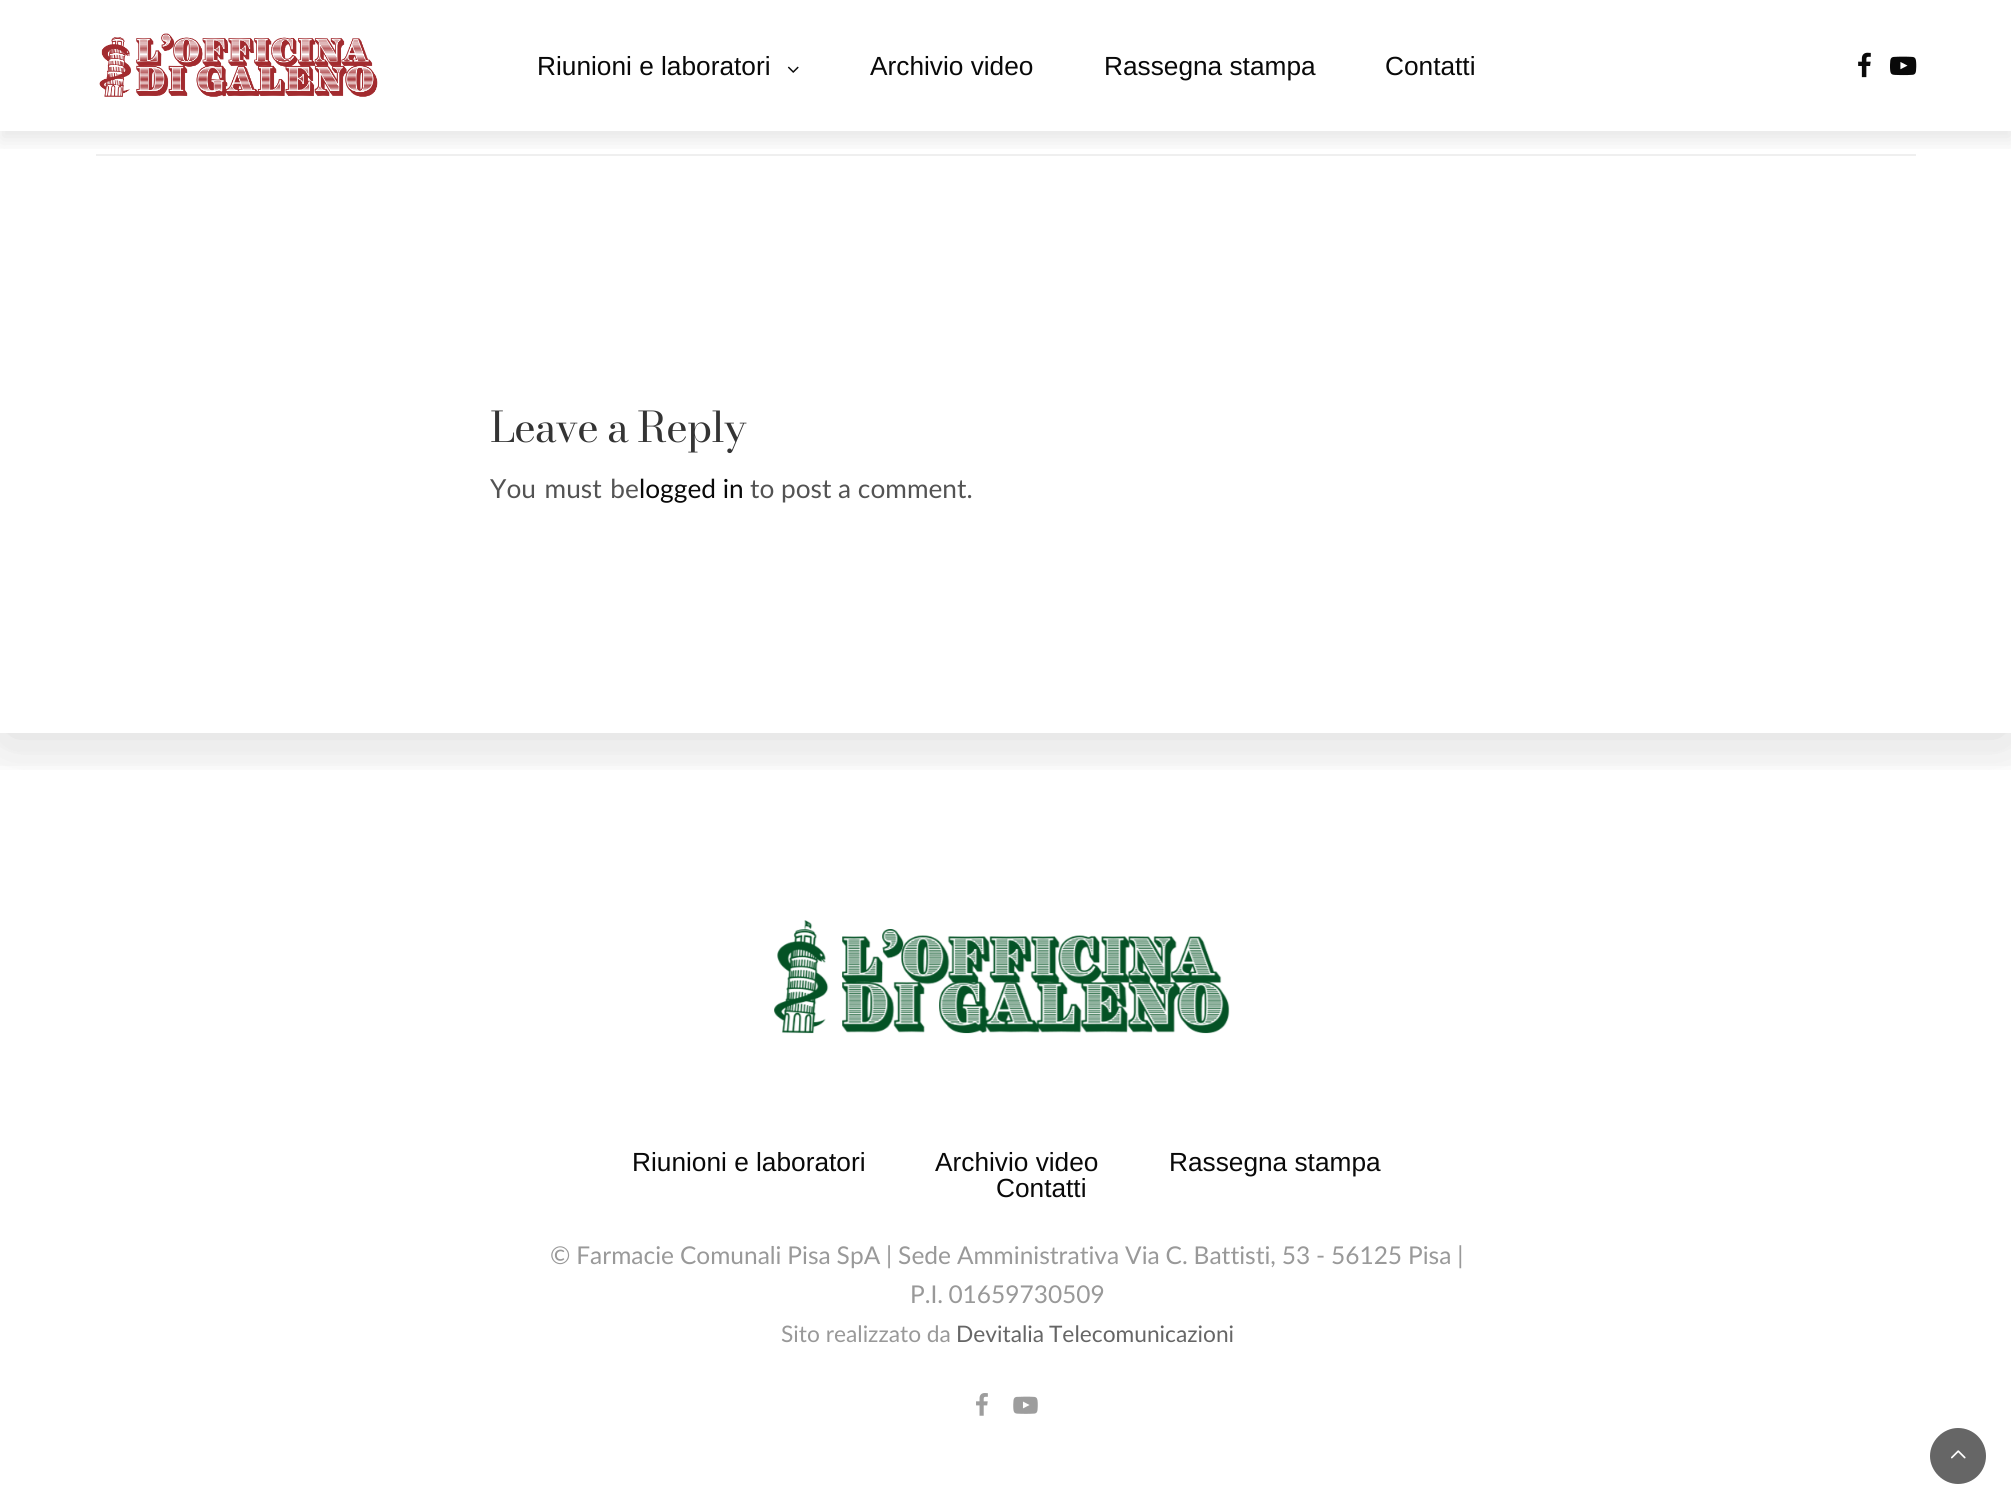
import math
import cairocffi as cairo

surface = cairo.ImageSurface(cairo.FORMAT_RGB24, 2011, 1510)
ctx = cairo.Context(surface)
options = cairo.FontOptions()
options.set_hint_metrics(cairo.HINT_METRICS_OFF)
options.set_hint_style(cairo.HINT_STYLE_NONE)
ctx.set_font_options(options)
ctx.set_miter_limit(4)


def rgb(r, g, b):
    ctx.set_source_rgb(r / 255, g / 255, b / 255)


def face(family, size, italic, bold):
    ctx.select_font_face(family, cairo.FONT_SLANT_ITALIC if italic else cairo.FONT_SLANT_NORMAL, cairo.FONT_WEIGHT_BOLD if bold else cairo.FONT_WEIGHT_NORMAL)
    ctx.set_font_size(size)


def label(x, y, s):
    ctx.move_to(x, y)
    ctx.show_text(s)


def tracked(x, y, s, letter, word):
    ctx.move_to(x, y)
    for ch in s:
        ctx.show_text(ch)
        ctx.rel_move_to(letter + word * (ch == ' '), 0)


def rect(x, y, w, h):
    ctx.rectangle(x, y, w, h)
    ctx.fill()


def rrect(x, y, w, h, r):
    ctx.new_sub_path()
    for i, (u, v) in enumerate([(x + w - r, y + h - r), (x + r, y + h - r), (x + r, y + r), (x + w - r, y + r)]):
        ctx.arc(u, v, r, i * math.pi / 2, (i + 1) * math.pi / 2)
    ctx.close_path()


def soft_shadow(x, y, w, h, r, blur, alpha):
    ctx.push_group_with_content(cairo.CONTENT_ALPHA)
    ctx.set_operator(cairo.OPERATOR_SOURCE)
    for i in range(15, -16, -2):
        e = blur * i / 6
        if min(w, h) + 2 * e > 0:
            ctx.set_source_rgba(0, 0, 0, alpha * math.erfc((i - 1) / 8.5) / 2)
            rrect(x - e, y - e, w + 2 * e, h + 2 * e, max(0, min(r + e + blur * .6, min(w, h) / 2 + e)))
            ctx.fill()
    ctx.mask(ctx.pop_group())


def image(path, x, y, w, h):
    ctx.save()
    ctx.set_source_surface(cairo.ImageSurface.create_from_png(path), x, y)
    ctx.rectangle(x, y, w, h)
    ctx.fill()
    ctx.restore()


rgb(255, 255, 255)
ctx.paint()
ctx.save()
ctx.rectangle(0, 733, 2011, 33)
ctx.clip()
rgb(0, 0, 0)
soft_shadow(0, -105, 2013, 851, 0, 35, 0.07)
ctx.restore()
ctx.save()
ctx.rectangle(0, 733, 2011, 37)
ctx.clip()
rgb(0, 0, 0)
soft_shadow(0, -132, 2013, 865, 0, 44, 0.1)
ctx.restore()
rgb(239, 239, 239)
rect(96, 154, 1820, 2)
ctx.save()
ctx.rectangle(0, 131, 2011, 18)
ctx.clip()
rgb(0, 0, 0)
soft_shadow(0, 9, 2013, 131, 0, 10.5, 0.1)
ctx.restore()
image('image0.png', 99, 33, 279, 64)
face('Liberation Sans', 26.25, 0, 0)
rgb(9, 9, 9)
label(537, 75, 'Riunioni e laboratori')
image('image1.png', 787, 66, 12, 7)
label(870, 75, 'Archivio video')
label(1104, 75, 'Rassegna stampa')
label(1385, 75, 'Contatti')
image('image2.png', 1858, 52, 13, 26)
image('image3.png', 1890, 56, 27, 20)
face('Bodoni Moda', 42, 0, 0)
rgb(52, 52, 52)
tracked(490, 442, 'Leave a Reply', -1.25, 0)
face('Lato', 26.25, 0, 0)
rgb(83, 83, 83)
tracked(490, 498, 'You must be', 0, 2)
rgb(9, 9, 9)
label(639, 498, 'logged in')
rgb(83, 83, 83)
label(750, 498, 'to post a comment.')
image('image4.png', 774, 920, 456, 114)
face('Liberation Sans', 26.25, 0, 0)
rgb(9, 9, 9)
label(632, 1171, 'Riunioni e laboratori')
label(935, 1171, 'Archivio video')
label(1169, 1171, 'Rassegna stampa')
label(996, 1197, 'Contatti')
face('Lato', 24.5, 0, 0)
rgb(153, 153, 153)
tracked(550, 1264, '© Farmacie Comunali Pisa SpA | Sede Amministrativa Via C. Battisti, 53 - 56125 Pisa |', 0, -0.4)
tracked(910, 1303, 'P.I. 01659730509', 0, -1)
face('Lato', 22.75, 0, 0)
label(781, 1342, 'Sito realizzato da')
rgb(102, 102, 102)
tracked(956, 1342, 'Devitalia Telecomunicazioni', 0, -1)
image('image5.png', 976, 1393, 12, 23)
image('image6.png', 1013, 1396, 25, 18)
ctx.new_path()
ctx.move_to(1986, 1456)
ctx.curve_to(1986, 1471, 1974, 1484, 1958, 1484)
ctx.curve_to(1943, 1484, 1930, 1471, 1930, 1456)
ctx.curve_to(1930, 1441, 1943, 1428, 1958, 1428)
ctx.curve_to(1974, 1428, 1986, 1441, 1986, 1456)
ctx.close_path()
ctx.fill()
image('image7.png', 1951, 1450, 15, 9)
surface.write_to_png('render.png')
